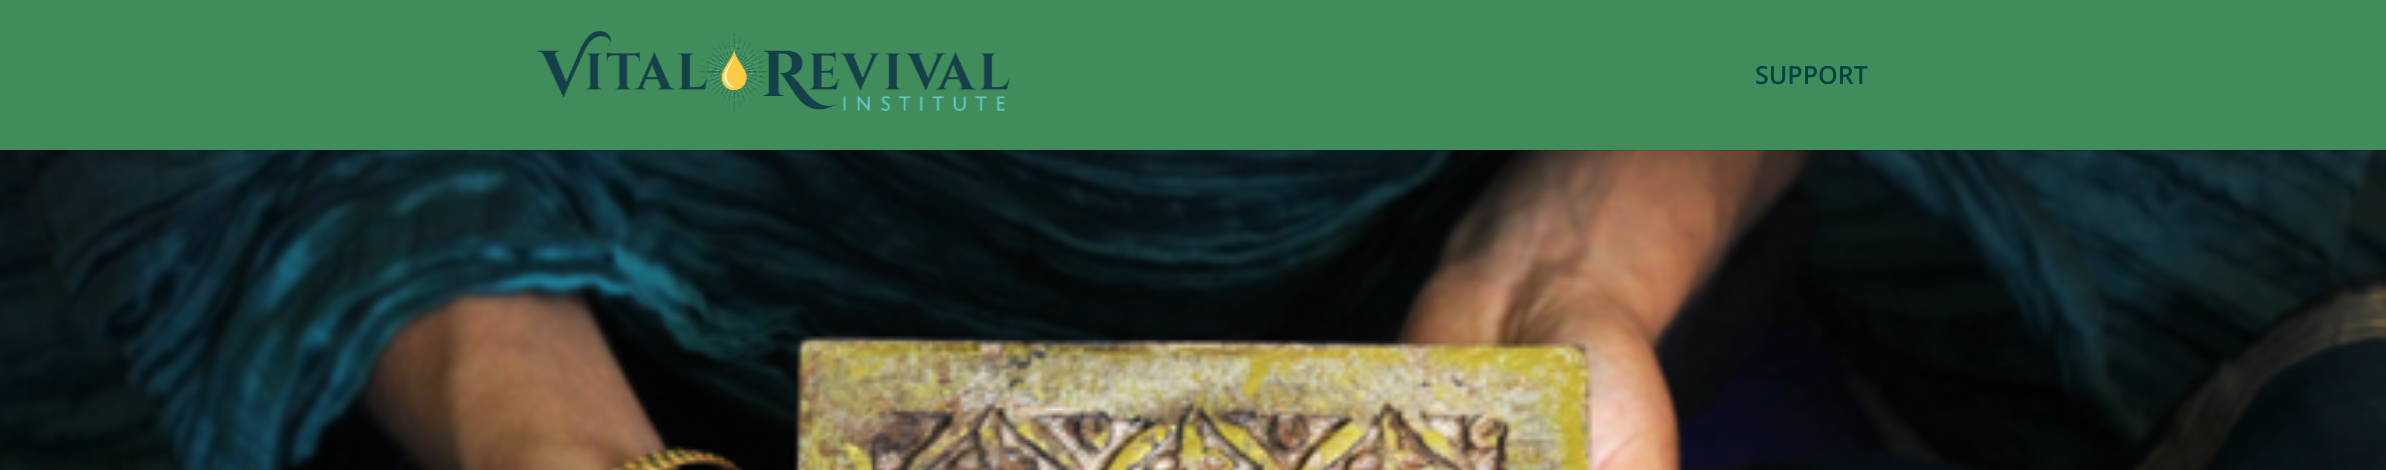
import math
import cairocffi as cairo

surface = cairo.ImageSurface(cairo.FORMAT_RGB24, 2386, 470)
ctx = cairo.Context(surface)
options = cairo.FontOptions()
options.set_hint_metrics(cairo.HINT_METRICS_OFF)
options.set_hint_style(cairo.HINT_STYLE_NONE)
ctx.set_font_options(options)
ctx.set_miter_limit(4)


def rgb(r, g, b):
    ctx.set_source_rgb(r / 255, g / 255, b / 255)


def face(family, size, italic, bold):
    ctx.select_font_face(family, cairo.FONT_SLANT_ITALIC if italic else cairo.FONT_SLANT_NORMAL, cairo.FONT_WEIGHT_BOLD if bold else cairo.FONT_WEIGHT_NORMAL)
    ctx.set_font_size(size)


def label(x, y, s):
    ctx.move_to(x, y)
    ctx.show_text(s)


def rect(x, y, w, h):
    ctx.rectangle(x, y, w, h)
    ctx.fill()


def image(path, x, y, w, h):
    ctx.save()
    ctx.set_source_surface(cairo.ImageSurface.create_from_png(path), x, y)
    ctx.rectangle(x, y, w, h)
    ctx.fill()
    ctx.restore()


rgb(255, 255, 255)
ctx.paint()
image('image1.png', 0, 150, 2386, 320)
ctx.set_source_rgba(0, 0, 0, 0.1)
rect(22, 150, 2364, 1)
rgb(64, 140, 91)
rect(0, 0, 2386, 150)
image('image0.png', 537, 31, 473, 82)
face('Open Sans SemiBold', 25, 0, 0)
rgb(0, 66, 66)
label(1755, 84, 'SUPPORT')
surface.write_to_png('render.png')
